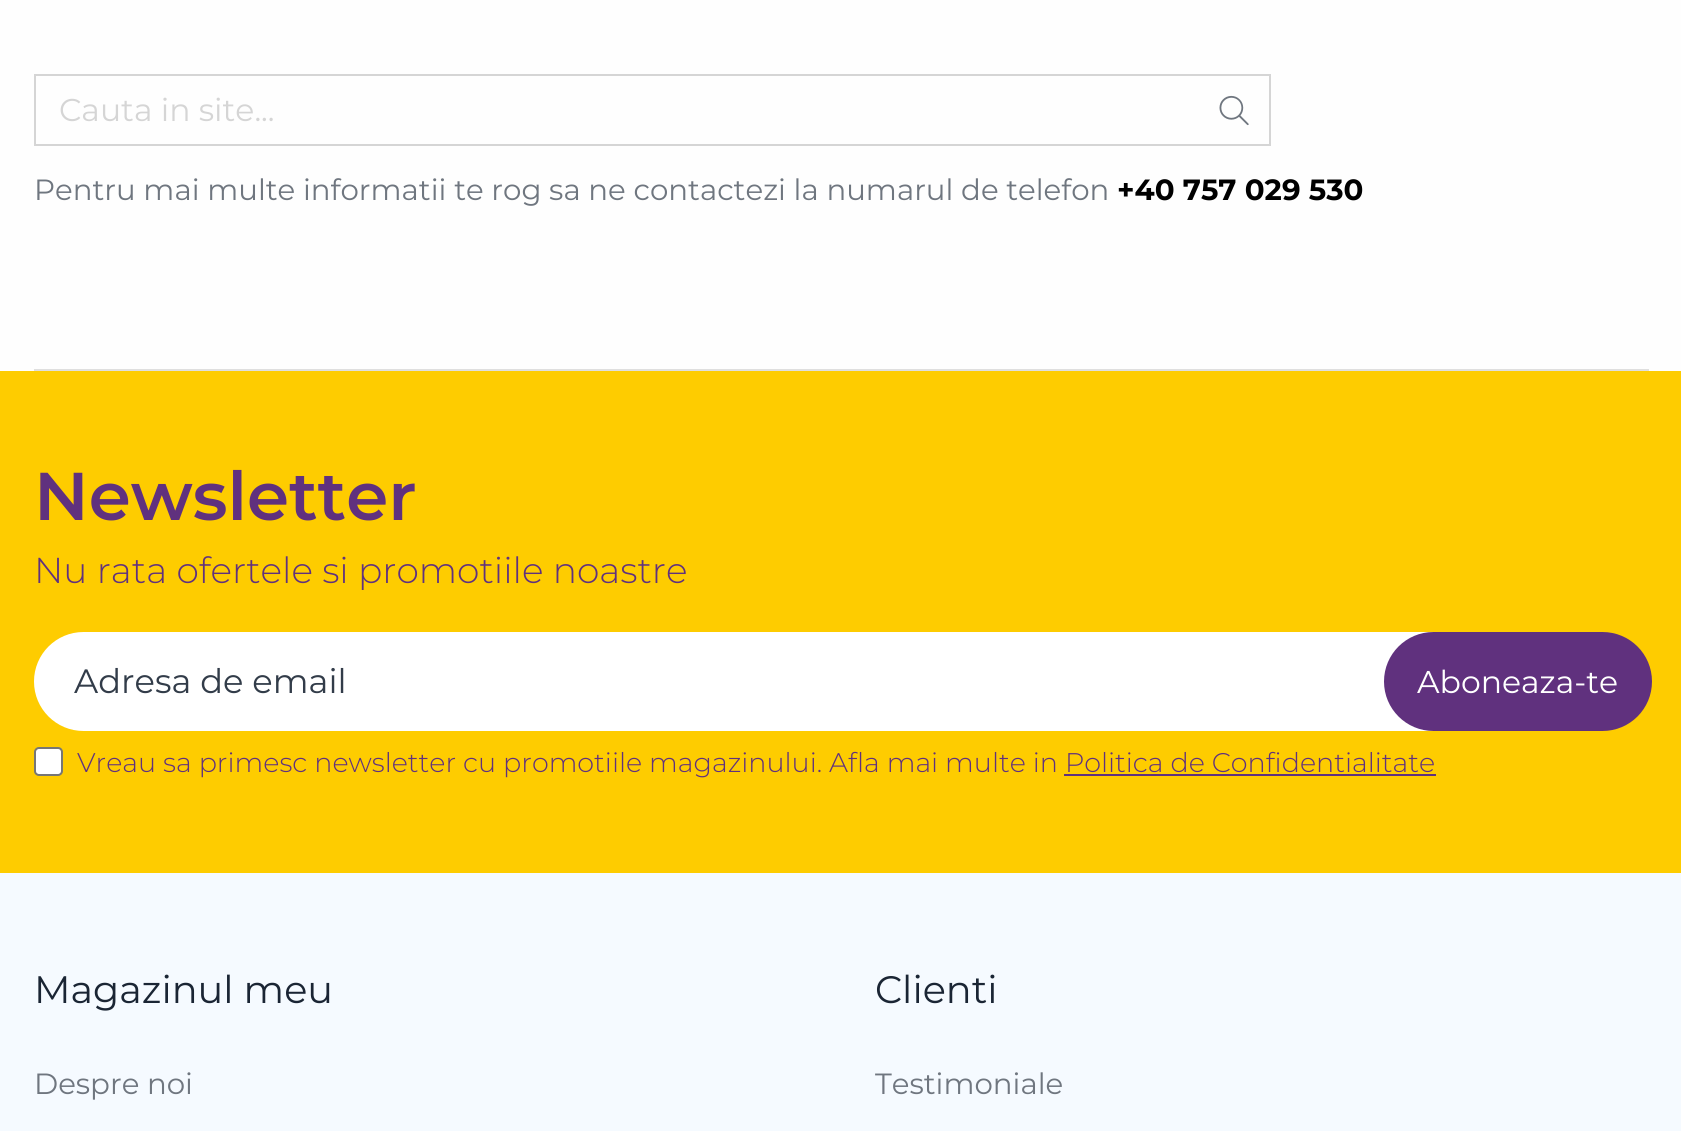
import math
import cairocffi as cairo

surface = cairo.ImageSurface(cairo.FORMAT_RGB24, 1681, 1131)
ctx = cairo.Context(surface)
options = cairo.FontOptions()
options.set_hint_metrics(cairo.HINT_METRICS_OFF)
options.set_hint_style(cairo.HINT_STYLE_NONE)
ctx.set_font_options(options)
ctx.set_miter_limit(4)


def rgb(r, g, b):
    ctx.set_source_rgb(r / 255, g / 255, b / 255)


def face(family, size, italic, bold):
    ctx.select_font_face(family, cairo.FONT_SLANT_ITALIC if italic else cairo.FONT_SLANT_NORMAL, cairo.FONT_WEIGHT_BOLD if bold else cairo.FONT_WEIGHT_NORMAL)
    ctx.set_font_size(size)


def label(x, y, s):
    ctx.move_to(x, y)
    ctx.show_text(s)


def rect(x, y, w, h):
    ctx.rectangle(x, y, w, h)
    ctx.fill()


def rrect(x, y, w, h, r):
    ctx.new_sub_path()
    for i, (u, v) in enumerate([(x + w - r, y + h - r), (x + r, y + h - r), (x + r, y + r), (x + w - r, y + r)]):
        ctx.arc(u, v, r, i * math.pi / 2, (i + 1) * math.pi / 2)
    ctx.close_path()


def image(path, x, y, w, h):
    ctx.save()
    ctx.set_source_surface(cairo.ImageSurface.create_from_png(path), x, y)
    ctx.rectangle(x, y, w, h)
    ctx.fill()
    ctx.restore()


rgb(254, 254, 254)
ctx.paint()
rgb(223, 223, 223)
rect(34, 369, 1615, 2)
ctx.rectangle(35, 75, 1235, 70)
rgb(213, 213, 213)
ctx.stroke()
face('Montserrat', 31.5, 0, 0)
label(59, 121, 'Cauta in site...')
image('image0.png', 1219, 95, 30, 31)
face('Montserrat', 29.25, 0, 0)
rgb(111, 118, 127)
label(34, 200, 'Pentru mai multe informatii te rog sa ne contactezi la numarul de telefon')
face('Montserrat', 29.25, 0, 1)
rgb(0, 0, 0)
label(1117, 200, '+40 757 029 530')
rgb(254, 204, 0)
rect(0, 371, 1681, 502)
face('Montserrat SemiBold', 67.5, 0, 0)
rgb(96, 49, 126)
label(34, 520, 'Newsletter')
face('Montserrat Light', 36, 0, 0)
label(34, 583, 'Nu rata ofertele si promotiile noastre')
rgb(255, 255, 255)
rrect(34, 632, 1575, 99, 49.5)
ctx.fill()
face('Montserrat', 33.75, 0, 0)
rgb(50, 60, 73)
label(74, 693, 'Adresa de email')
rgb(96, 49, 126)
rrect(1384, 632, 268, 99, 49.5)
ctx.fill()
face('Montserrat', 31.5, 0, 0)
rgb(255, 255, 255)
label(1417, 693, 'Aboneaza-te')
rrect(35, 748, 27, 27, 4)
ctx.fill_preserve()
rgb(118, 118, 118)
ctx.stroke()
face('Montserrat Light', 27, 0, 0)
rgb(96, 49, 126)
label(77, 772, 'Vreau sa primesc newsletter cu promotiile magazinului. Afla mai multe in Politica de Confidentialitate')
rect(1064, 774, 372, 2)
rgb(245, 250, 255)
rect(0, 873, 1681, 258)
face('Montserrat', 38.25, 0, 0)
rgb(26, 37, 52)
label(34, 1003, 'Magazinul meu')
face('Montserrat', 29.25, 0, 0)
rgb(111, 118, 127)
label(34, 1094, 'Despre noi')
face('Montserrat', 38.25, 0, 0)
rgb(26, 37, 52)
label(875, 1003, 'Clienti')
face('Montserrat', 29.25, 0, 0)
rgb(111, 118, 127)
label(875, 1094, 'Testimoniale')
surface.write_to_png('render.png')
